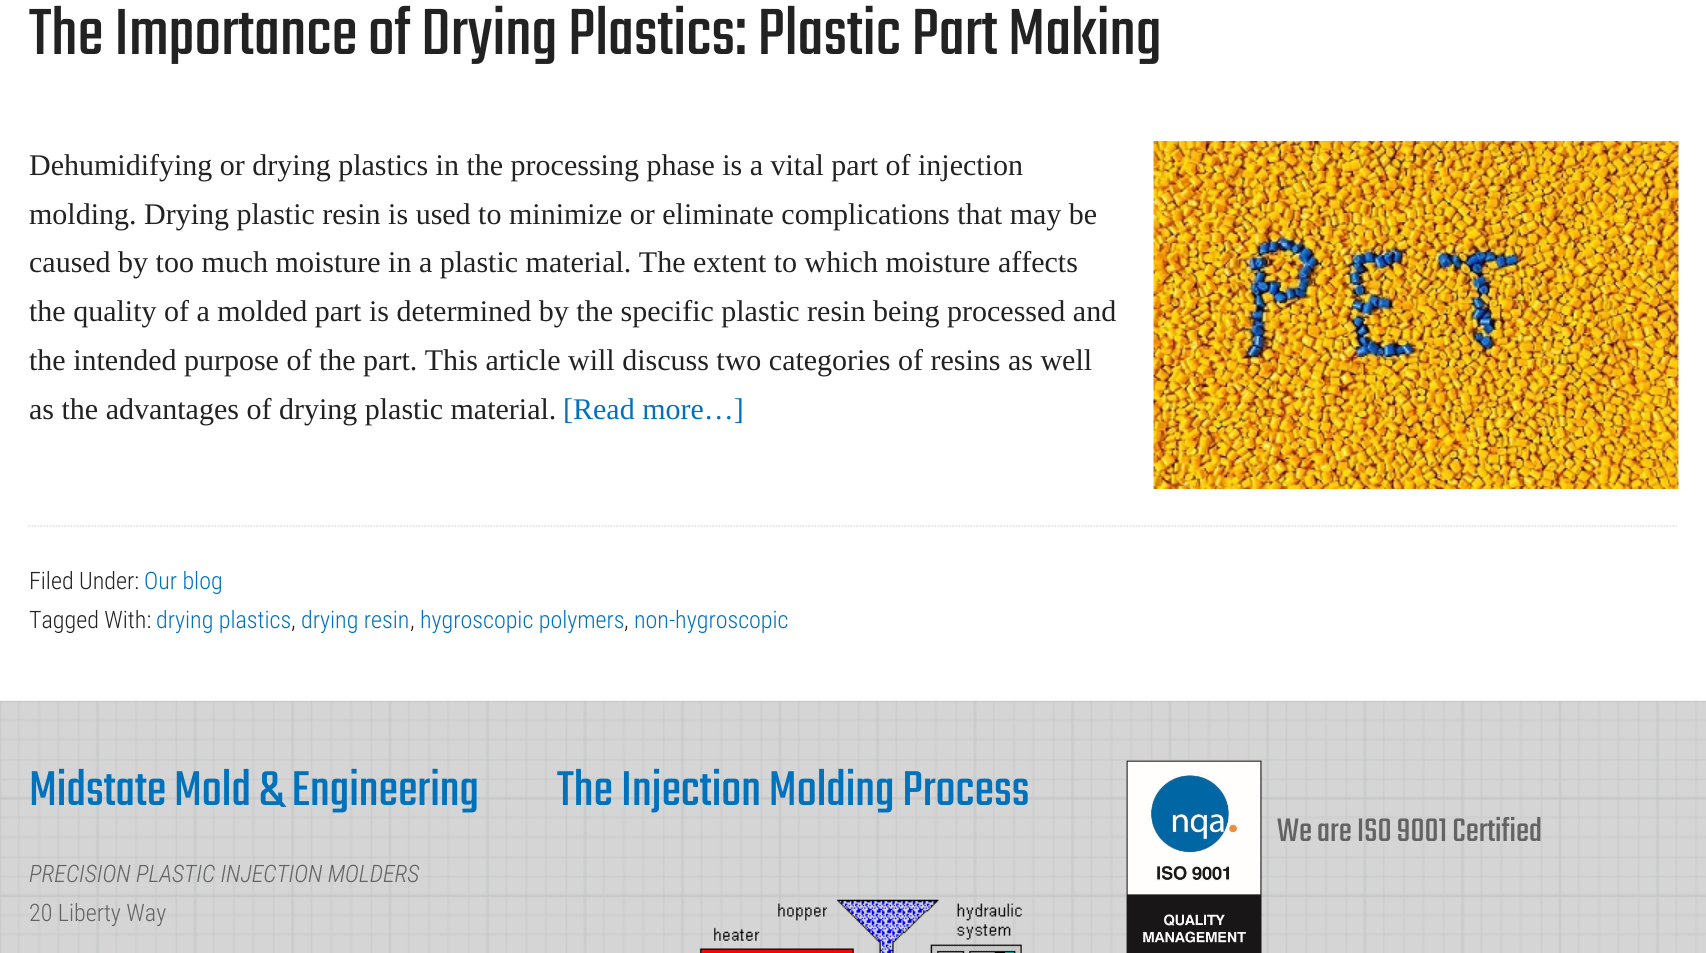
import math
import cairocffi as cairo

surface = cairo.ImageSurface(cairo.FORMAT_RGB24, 1706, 953)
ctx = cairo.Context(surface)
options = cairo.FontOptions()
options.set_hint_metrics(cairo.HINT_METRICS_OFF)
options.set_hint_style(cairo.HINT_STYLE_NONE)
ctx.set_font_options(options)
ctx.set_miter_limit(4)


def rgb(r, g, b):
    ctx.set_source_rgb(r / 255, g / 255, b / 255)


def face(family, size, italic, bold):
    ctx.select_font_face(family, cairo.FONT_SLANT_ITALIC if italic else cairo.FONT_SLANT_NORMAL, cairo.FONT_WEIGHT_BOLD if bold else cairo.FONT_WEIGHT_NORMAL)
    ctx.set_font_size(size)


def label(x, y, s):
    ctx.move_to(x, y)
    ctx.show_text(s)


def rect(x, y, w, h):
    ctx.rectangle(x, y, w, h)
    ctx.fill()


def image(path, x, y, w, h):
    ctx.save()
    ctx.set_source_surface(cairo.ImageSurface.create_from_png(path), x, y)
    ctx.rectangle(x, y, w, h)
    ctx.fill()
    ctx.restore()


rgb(255, 255, 255)
ctx.paint()
face('Teko Light', 72, 0, 0)
rgb(34, 34, 34)
label(29, 54, 'The Importance of Drying Plastics: Plastic Part Making')
face('Liberation Serif', 30, 0, 0)
label(29, 175, 'Dehumidifying or drying plastics in the processing phase is a vital part of injection')
image('image0.png', 1153, 141, 526, 348)
label(29, 224, 'molding. Drying plastic resin is used to minimize or eliminate complications that may be')
label(29, 272, 'caused by too much moisture in a plastic material. The extent to which moisture affects')
label(29, 321, 'the quality of a molded part is determined by the specific plastic resin being processed and')
label(29, 370, 'the intended purpose of the part. This article will discuss two categories of resins as well')
label(29, 419, 'as the advantages of drying plastic material.')
rgb(0, 114, 188)
label(563, 419, '[Read more…]')
ctx.new_path()
ctx.move_to(28.5, 526)
ctx.line_to(1678.5, 526)
rgb(221, 221, 221)
ctx.set_line_width(1.5)
ctx.set_dash([1.5, 1.5])
ctx.stroke()
face('Roboto Condensed Light', 24, 0, 0)
rgb(34, 34, 34)
label(29, 589, 'Filed Under:')
rgb(0, 114, 188)
label(144, 589, 'Our blog')
rgb(34, 34, 34)
label(29, 628, 'Tagged With:')
rgb(0, 114, 188)
label(156, 628, 'drying plastics')
rgb(34, 34, 34)
label(291, 628, ',')
rgb(0, 114, 188)
label(301, 628, 'drying resin')
rgb(34, 34, 34)
label(410, 628, ',')
rgb(0, 114, 188)
label(420, 628, 'hygroscopic polymers')
rgb(34, 34, 34)
label(624, 628, ',')
rgb(0, 114, 188)
label(634, 628, 'non-hygroscopic')
rgb(213, 213, 213)
rect(0, 701, 1706, 252)
image('image1.png', 0, 700, 1706, 253)
face('Teko Light', 54, 0, 0)
rgb(0, 114, 188)
label(29, 805, 'Midstate Mold & Engineering')
face('Roboto Condensed Light', 24, 1, 0)
rgb(99, 99, 99)
label(29, 882, 'PRECISION PLASTIC INJECTION MOLDERS')
face('Roboto Condensed Light', 24, 0, 0)
label(29, 921, '20 Liberty Way')
face('Teko Light', 54, 0, 0)
rgb(0, 114, 188)
label(557, 805, 'The Injection Molding Process')
image('image2.png', 699, 899, 323, 54)
image('image3.png', 1126, 760, 136, 193)
face('Teko Light', 36, 0, 0)
rgb(99, 99, 99)
label(1277, 841, 'We are ISO 9001 Certified')
surface.write_to_png('render.png')
